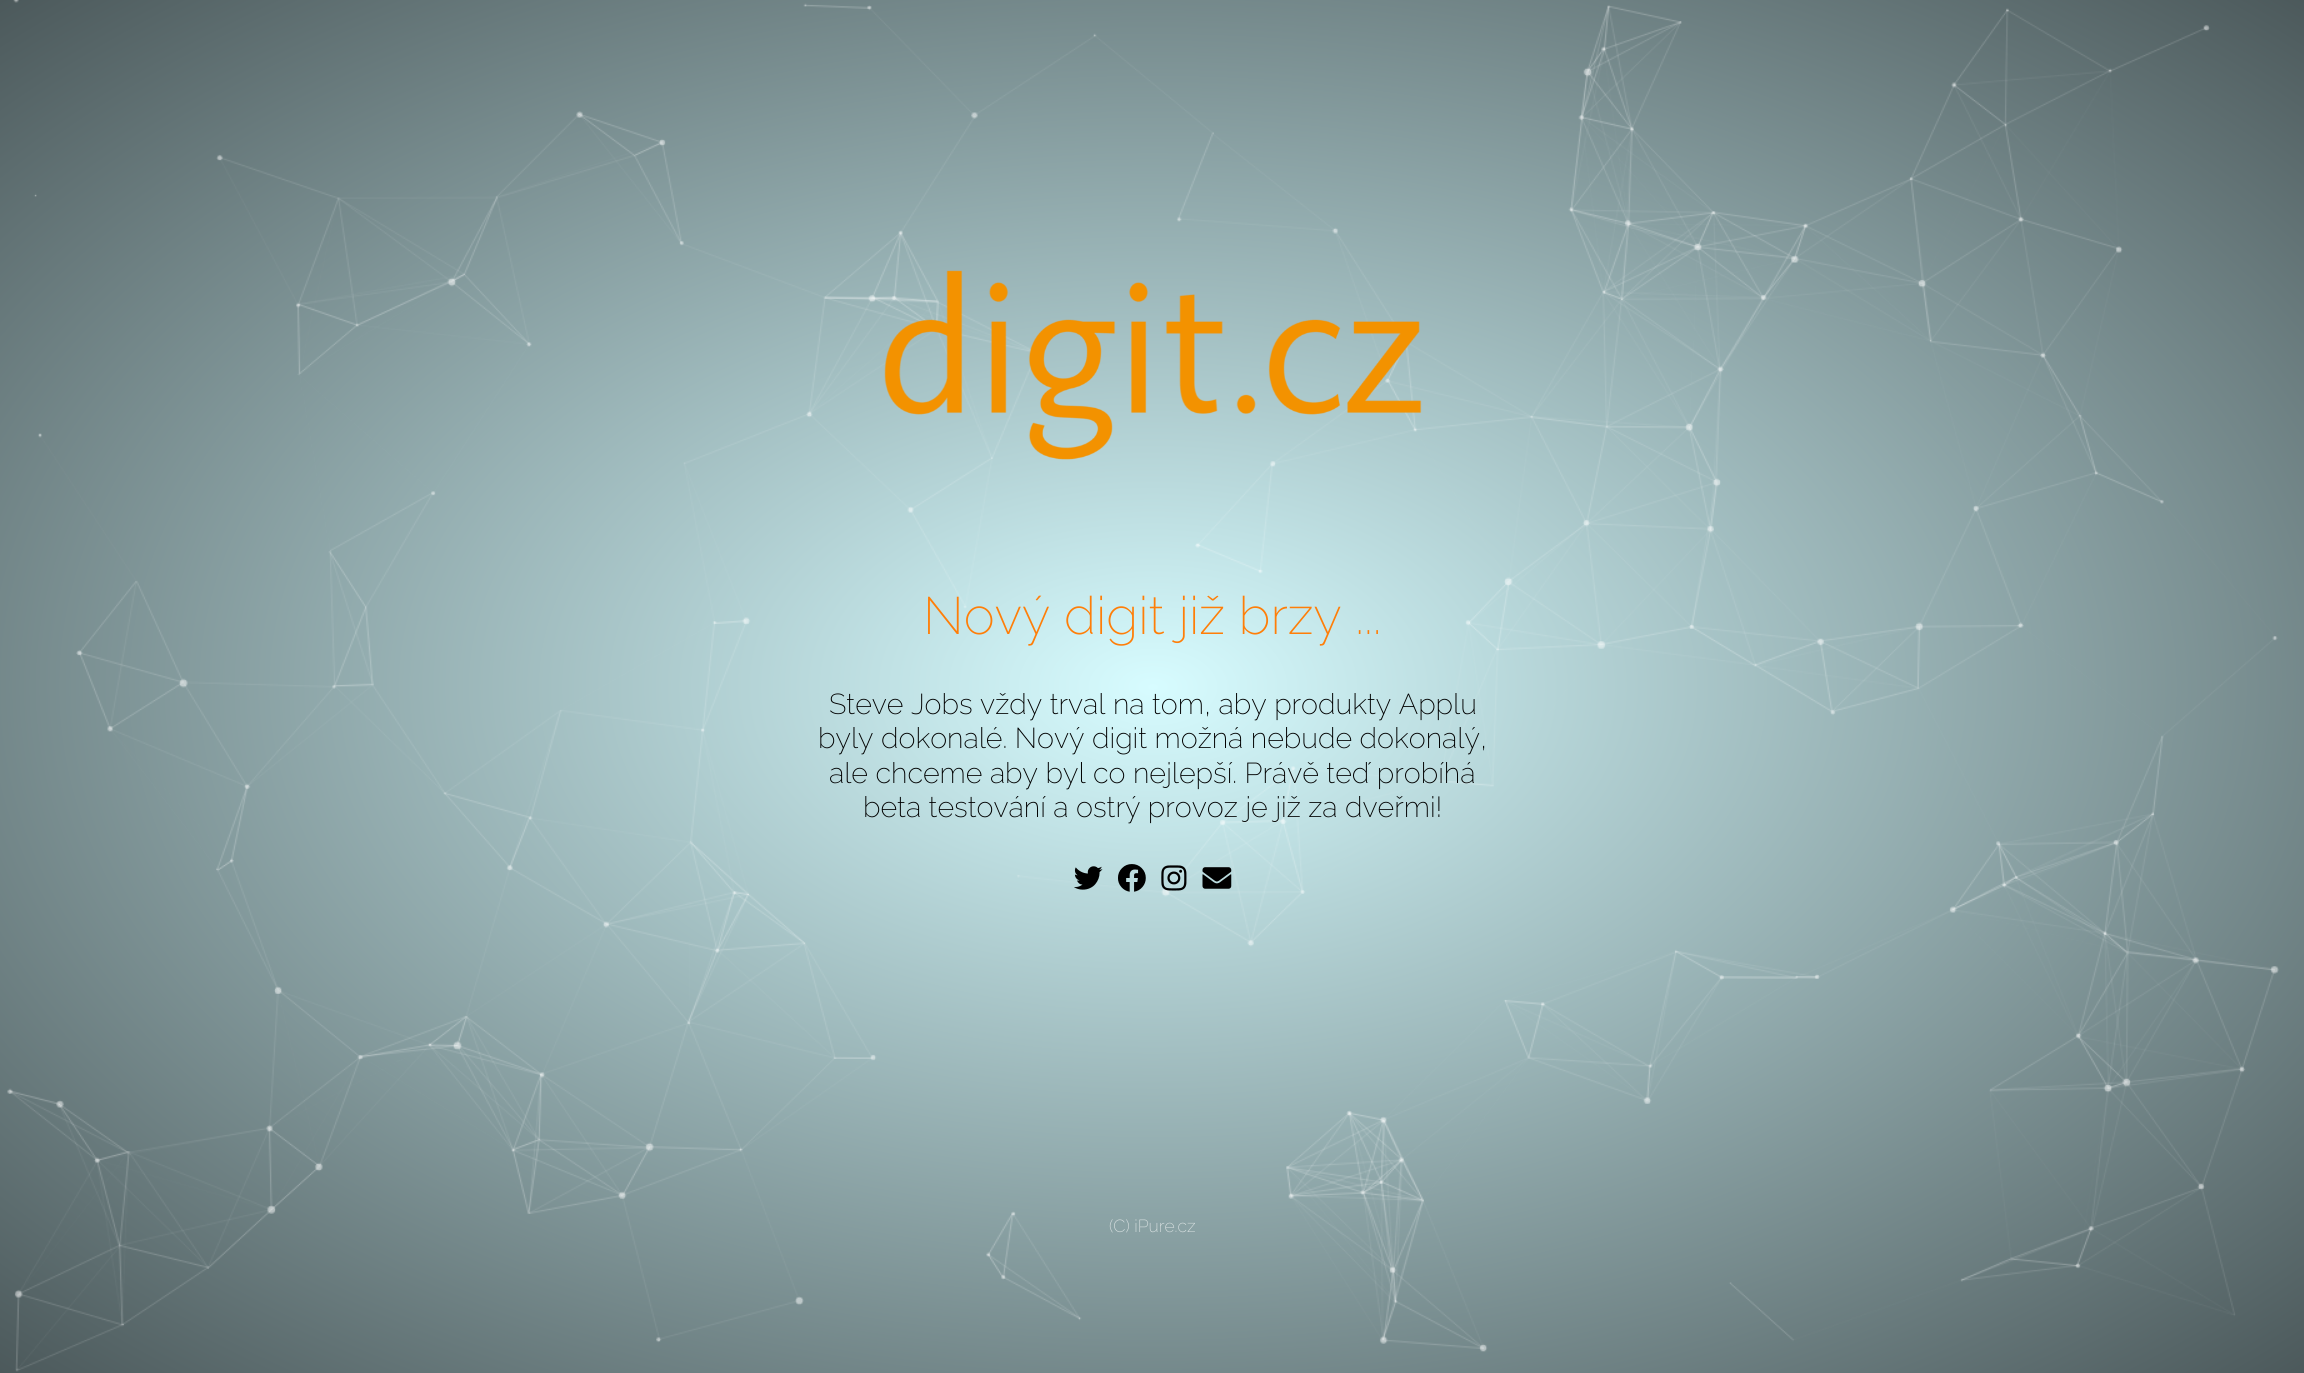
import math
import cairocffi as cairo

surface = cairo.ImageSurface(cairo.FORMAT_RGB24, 2304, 1373)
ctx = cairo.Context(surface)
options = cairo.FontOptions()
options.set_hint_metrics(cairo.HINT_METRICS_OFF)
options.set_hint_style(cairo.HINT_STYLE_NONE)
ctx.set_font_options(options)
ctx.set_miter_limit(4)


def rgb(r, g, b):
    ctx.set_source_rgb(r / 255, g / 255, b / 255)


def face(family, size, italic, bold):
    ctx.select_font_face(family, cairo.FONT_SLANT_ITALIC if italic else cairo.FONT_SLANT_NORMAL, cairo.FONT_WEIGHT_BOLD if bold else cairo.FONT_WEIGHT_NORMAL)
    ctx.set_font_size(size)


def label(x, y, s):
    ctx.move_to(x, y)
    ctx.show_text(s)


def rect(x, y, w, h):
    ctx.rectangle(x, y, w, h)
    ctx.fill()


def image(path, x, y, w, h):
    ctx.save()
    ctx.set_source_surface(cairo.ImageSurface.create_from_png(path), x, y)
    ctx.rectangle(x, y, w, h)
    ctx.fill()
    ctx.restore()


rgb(255, 255, 255)
ctx.paint()
gradient = cairo.RadialGradient(0, 0, 0, 0, 0, 1)
gradient.set_matrix(cairo.Matrix(1 / 1630, 0, 0, 1 / 971, -1 * 1153 / 1630, -1 * 687 / 971))
gradient.add_color_stop_rgba(0, 0.843, 0.988, 1, 1)
gradient.add_color_stop_rgba(1, 0.294, 0.345, 0.353, 1)
ctx.set_source(gradient)
rect(0, 0, 2304, 1373)
image('image0.png', 7, 0, 2272, 1372)
image('image1.png', 884, 270, 538, 190)
face('Raleway Thin', 52.5, 0, 0)
rgb(255, 126, 8)
label(923, 634, 'Nový digit již brzy ...')
face('Raleway Thin', 28.75, 0, 0)
rgb(0, 0, 0)
label(829, 714, 'Steve Jobs vždy trval na tom, aby produkty Applu')
label(818, 748, 'byly dokonalé. Nový digit možná nebude dokonalý,')
label(829, 783, 'ale chceme aby byl co nejlepší. Právě teď probíhá')
label(863, 817, 'beta testování a ostrý provoz je již za dveřmi!')
image('image2.png', 1074, 866, 29, 24)
image('image3.png', 1118, 864, 28, 28)
image('image4.png', 1161, 865, 26, 26)
image('image5.png', 1202, 867, 30, 22)
face('Raleway Thin', 17.5, 0, 0)
rgb(220, 227, 228)
label(1109, 1232, '(C) iPure.cz')
surface.write_to_png('render.png')
